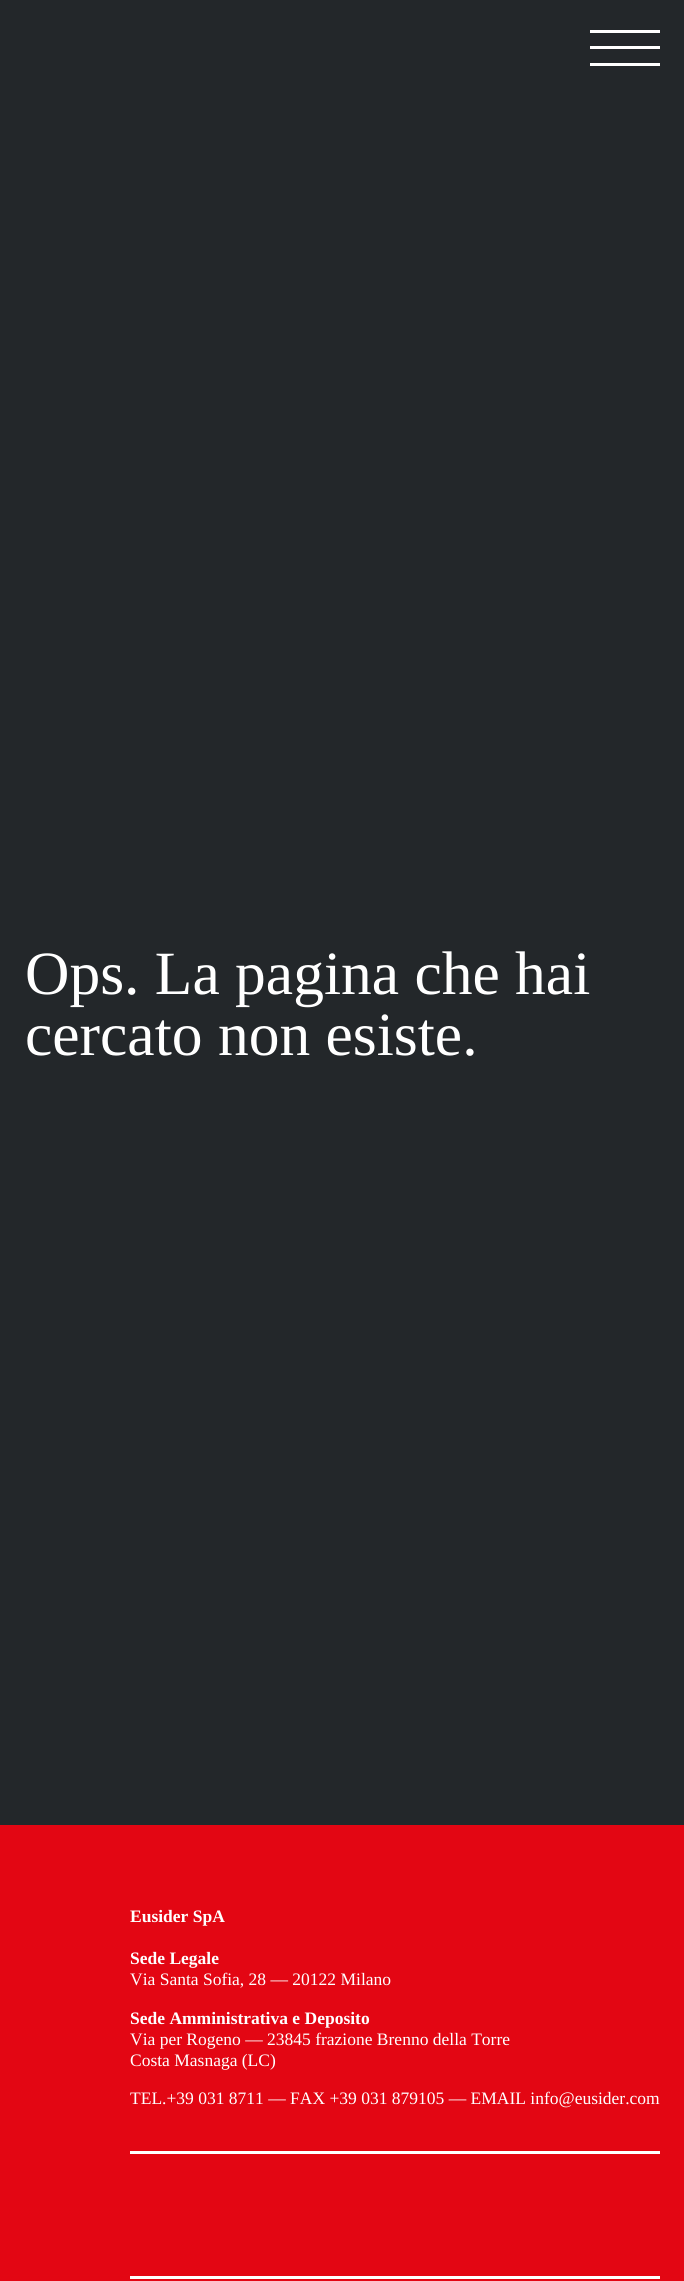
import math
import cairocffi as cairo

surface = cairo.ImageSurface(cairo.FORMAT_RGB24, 684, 2281)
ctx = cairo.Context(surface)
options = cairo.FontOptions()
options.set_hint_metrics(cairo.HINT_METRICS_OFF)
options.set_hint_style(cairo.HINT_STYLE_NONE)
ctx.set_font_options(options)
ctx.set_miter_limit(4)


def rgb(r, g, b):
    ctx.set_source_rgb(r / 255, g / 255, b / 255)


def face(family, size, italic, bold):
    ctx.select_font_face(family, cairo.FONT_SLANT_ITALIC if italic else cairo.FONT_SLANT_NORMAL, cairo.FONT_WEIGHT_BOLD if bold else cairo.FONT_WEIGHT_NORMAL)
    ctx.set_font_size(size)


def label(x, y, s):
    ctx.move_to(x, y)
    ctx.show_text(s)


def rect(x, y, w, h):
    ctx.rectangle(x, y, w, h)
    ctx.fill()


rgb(35, 39, 42)
ctx.paint()
rgb(255, 255, 255)
rect(590, 46, 70, 3)
rect(590, 30, 70, 3)
rect(590, 63, 70, 3)
face('Liberation Serif', 61.5, 0, 0)
label(25, 994, 'Ops. La pagina che hai')
label(25, 1055, 'cercato non esiste.')
rgb(227, 6, 19)
rect(0, 1825, 684, 456)
face('Liberation Serif', 17.5, 0, 1)
rgb(255, 255, 255)
label(130, 1922, 'Eusider SpA')
label(130, 1964, 'Sede Legale')
face('Liberation Serif', 17.5, 0, 0)
label(130, 1985, 'Via Santa Sofia, 28 — 20122 Milano')
face('Liberation Serif', 17.5, 0, 1)
label(130, 2024, 'Sede Amministrativa e Deposito')
face('Liberation Serif', 17.5, 0, 0)
label(130, 2045, 'Via per Rogeno — 23845 frazione Brenno della Torre')
label(130, 2066, 'Costa Masnaga (LC)')
label(130, 2104, 'TEL.+39 031 8711 — FAX +39 031 879105 — EMAIL info@eusider.com')
rect(130, 2151, 530, 3)
rect(130, 2276, 530, 3)
surface.write_to_png('render.png')
